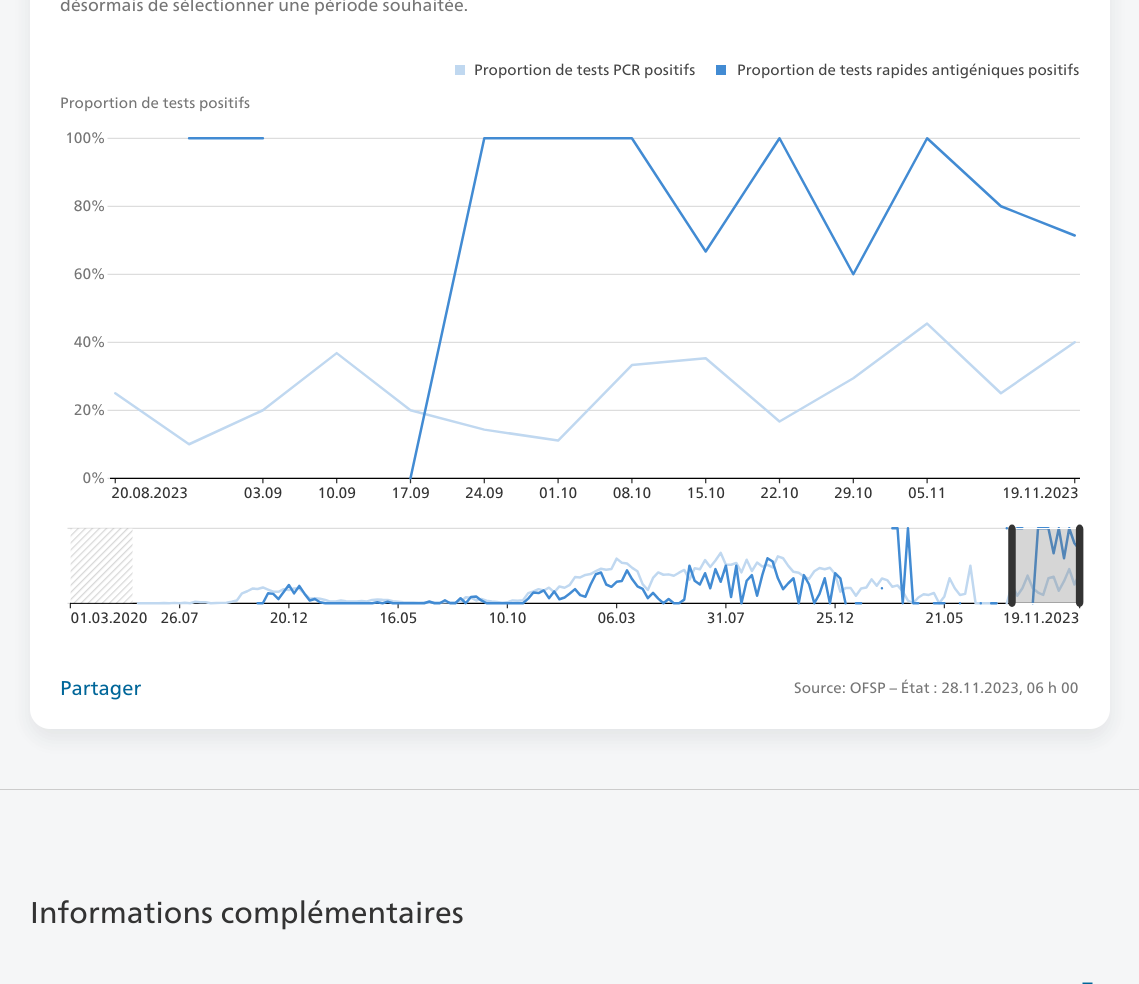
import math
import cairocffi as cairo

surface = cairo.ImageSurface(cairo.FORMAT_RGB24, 1139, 984)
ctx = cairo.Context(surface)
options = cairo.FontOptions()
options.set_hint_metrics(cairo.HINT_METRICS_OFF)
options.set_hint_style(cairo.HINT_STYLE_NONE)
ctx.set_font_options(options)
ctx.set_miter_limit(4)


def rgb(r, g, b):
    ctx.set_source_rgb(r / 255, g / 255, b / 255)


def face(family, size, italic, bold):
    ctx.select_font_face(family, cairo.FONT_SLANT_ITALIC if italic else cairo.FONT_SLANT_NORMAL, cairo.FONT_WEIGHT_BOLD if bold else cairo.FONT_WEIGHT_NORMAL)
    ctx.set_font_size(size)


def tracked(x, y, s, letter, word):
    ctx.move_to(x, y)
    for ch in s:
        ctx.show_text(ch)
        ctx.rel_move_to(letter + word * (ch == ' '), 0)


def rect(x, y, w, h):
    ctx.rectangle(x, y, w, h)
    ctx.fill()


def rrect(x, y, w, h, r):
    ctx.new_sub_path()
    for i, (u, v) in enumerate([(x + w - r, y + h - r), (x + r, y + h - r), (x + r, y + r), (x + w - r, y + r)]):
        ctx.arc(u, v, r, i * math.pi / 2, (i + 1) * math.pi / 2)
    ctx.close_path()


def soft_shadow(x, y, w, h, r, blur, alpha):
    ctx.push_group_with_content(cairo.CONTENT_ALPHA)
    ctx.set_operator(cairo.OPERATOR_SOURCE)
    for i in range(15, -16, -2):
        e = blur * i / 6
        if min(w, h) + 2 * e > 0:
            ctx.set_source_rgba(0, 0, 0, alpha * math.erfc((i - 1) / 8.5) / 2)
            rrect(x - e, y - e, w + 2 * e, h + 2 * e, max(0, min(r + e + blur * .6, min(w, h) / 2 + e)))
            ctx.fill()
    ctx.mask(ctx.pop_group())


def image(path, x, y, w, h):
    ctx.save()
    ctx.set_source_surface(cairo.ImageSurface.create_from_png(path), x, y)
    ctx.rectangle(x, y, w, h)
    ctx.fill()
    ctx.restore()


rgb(245, 246, 247)
ctx.paint()
rgb(13, 27, 41)
soft_shadow(30, -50, 1080, 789, 20, 10, 0.08)
rgb(255, 255, 255)
rrect(30, -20, 1080, 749, 20)
ctx.fill()
face('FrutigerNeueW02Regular', 17.5, 0, 0)
rgb(117, 117, 117)
tracked(60, 11, 'désormais de sélectionner une période souhaitée.', 0.1, 0)
rgb(192, 216, 240)
rect(455, 65, 10, 10)
face('FrutigerNeueW02Regular', 15, 0, 0)
rgb(69, 69, 69)
tracked(474, 75, 'Proportion de tests PCR positifs', 0.1, 0)
rgb(66, 139, 211)
rect(716, 65, 10, 10)
rgb(69, 69, 69)
tracked(737, 75, 'Proportion de tests rapides antigéniques positifs', 0.1, 0)
rgb(117, 117, 117)
tracked(60, 108, 'Proportion de tests positifs', 0.1, 0)
image('image0.png', 67, 132, 1013, 367)
image('image1.png', 67, 524, 1017, 100)
face('FrutigerNeueW02Regular', 20, 0, 0)
rgb(0, 102, 153)
tracked(60, 695, 'Partager', 0.1, 0)
face('FrutigerNeueW02Regular', 15, 0, 0)
rgb(117, 117, 117)
tracked(794, 693, 'Source: OFSP – État : 28.11.2023, 06 h 00', 0.1, 0)
rgb(204, 204, 204)
rect(0, 789, 1139, 1)
face('FrutigerNeueW02Regular', 30, 0, 0)
rgb(51, 51, 51)
tracked(30, 923, 'Informations complémentaires', 0.1, 0)
image('image2.png', 1082, 982, 11, 2)
surface.write_to_png('render.png')
